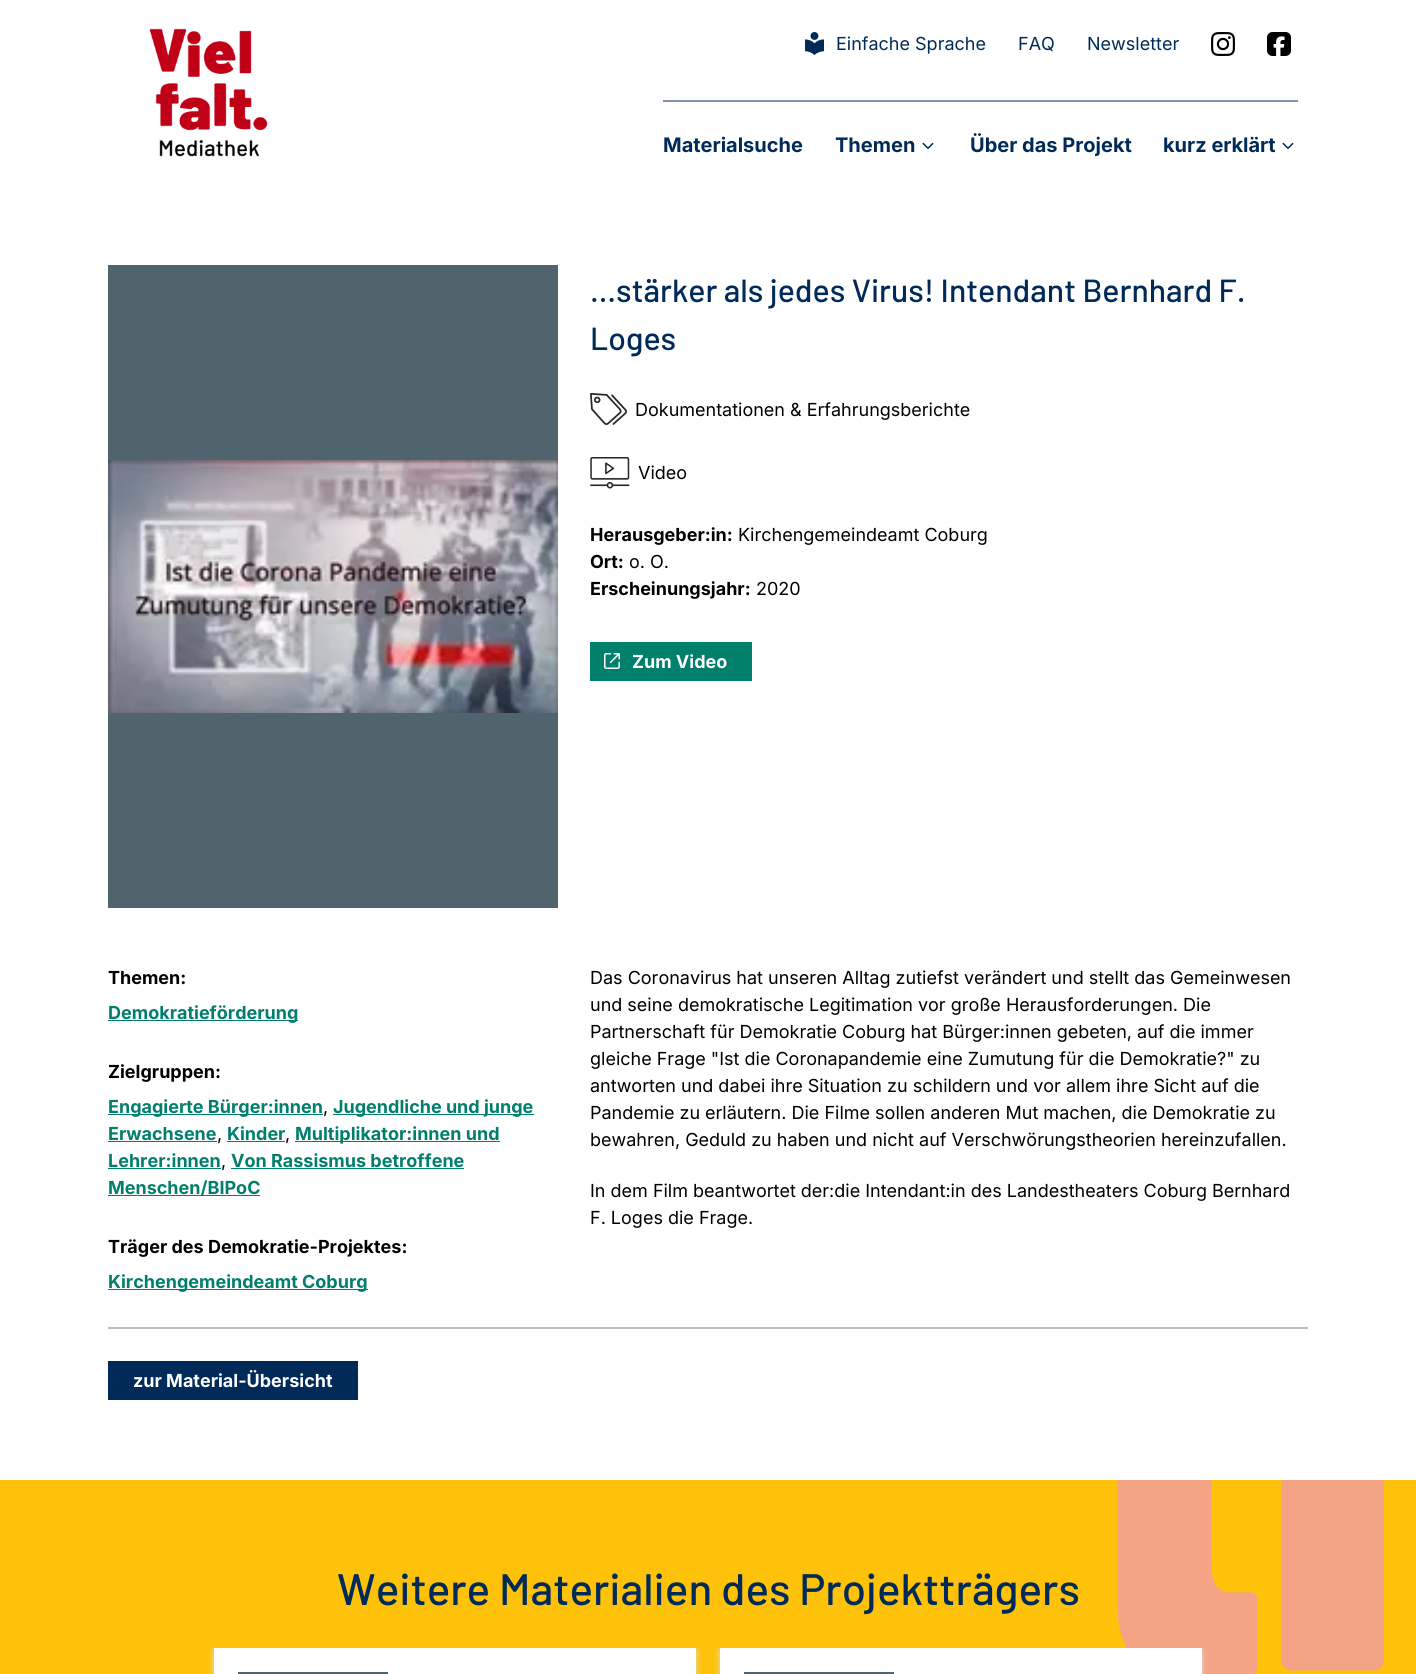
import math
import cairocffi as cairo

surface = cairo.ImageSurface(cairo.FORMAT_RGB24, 1416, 1674)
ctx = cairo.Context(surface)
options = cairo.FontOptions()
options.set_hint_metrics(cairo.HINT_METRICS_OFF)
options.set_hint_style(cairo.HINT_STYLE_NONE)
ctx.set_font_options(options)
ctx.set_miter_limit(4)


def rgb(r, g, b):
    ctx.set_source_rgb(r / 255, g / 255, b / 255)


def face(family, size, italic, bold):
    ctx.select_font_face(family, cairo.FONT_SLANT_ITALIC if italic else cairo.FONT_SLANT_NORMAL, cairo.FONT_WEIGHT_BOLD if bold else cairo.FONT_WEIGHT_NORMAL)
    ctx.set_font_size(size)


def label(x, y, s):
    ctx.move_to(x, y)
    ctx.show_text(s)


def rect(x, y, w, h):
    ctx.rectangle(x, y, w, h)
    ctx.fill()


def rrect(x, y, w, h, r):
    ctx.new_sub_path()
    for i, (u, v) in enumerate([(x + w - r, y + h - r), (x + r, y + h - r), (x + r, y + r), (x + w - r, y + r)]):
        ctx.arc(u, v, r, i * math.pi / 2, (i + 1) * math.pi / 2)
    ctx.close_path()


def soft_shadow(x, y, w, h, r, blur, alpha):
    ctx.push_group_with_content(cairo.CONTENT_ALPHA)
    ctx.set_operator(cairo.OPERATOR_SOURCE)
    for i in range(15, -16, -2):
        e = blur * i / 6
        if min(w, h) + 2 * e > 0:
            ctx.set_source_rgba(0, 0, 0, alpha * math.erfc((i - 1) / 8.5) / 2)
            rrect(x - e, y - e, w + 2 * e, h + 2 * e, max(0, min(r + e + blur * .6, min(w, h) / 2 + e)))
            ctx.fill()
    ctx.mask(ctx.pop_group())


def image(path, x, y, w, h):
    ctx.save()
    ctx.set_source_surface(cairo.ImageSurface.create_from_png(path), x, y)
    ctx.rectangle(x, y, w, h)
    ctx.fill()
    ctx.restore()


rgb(255, 255, 255)
ctx.paint()
image('image0.png', 805, 32, 19, 23)
face('Inter', 18, 0, 0)
rgb(0, 42, 87)
label(836, 50, 'Einfache Sprache')
label(1018, 50, 'FAQ')
label(1087, 50, 'Newsletter')
image('image1.png', 1211, 32, 24, 24)
image('image2.png', 1267, 32, 24, 24)
image('image3.png', 149, 28, 119, 129)
rgb(128, 149, 171)
rect(663, 100, 635, 2)
face('Inter', 20, 0, 1)
rgb(0, 42, 87)
label(663, 152, 'Materialsuche')
label(835, 152, 'Themen')
image('image4.png', 922, 142, 12, 8)
label(970, 152, 'Über das Projekt')
label(1163, 152, 'kurz erklärt')
image('image4.png', 1282, 142, 12, 8)
rgb(80, 100, 110)
rect(108, 265, 450, 643)
image('image5.png', 108, 460, 450, 253)
face('Barlow Medium', 32, 0, 0)
rgb(0, 42, 87)
label(590, 302, '…stärker als jedes Virus! Intendant Bernhard F.')
label(590, 350, 'Loges')
image('image6.png', 590, 393, 37, 32)
face('Inter', 18, 0, 0)
rgb(0, 0, 0)
label(635, 416, 'Dokumentationen & Erfahrungsberichte')
image('image7.png', 590, 457, 40, 32)
label(638, 479, 'Video')
face('Inter', 18, 0, 1)
label(590, 541, 'Herausgeber:in:')
face('Inter', 18, 0, 0)
label(738, 541, 'Kirchengemeindeamt Coburg')
face('Inter', 18, 0, 1)
label(590, 568, 'Ort:')
face('Inter', 18, 0, 0)
label(629, 568, 'o. O.')
face('Inter', 18, 0, 1)
label(590, 595, 'Erscheinungsjahr:')
face('Inter', 18, 0, 0)
label(756, 595, '2020')
rgb(0, 128, 108)
rect(590, 642, 162, 39)
image('image8.png', 604, 653, 16, 16)
face('Inter', 18, 0, 1)
rgb(255, 255, 255)
label(632, 668, 'Zum Video')
rgb(0, 0, 0)
label(108, 984, 'Themen:')
rgb(0, 128, 108)
rect(108, 1020, 190, 1)
label(108, 1019, 'Demokratieförderung')
rgb(0, 0, 0)
label(108, 1078, 'Zielgruppen:')
rgb(0, 128, 108)
rect(108, 1114, 215, 1)
label(108, 1113, 'Engagierte Bürger:innen')
face('Inter', 18, 0, 0)
rgb(0, 0, 0)
label(323, 1113, ',')
rgb(0, 128, 108)
rect(333, 1114, 201, 1)
face('Inter', 18, 0, 1)
label(333, 1113, 'Jugendliche und junge')
label(108, 1140, 'Erwachsene')
rect(108, 1141, 109, 1)
face('Inter', 18, 0, 0)
rgb(0, 0, 0)
label(217, 1140, ',')
face('Inter', 18, 0, 1)
rgb(0, 128, 108)
label(227, 1140, 'Kinder')
rect(227, 1141, 58, 1)
face('Inter', 18, 0, 0)
rgb(0, 0, 0)
label(285, 1140, ',')
rgb(0, 128, 108)
rect(295, 1141, 205, 1)
face('Inter', 18, 0, 1)
label(295, 1140, 'Multiplikator:innen und')
label(108, 1167, 'Lehrer:innen')
rect(108, 1168, 113, 1)
face('Inter', 18, 0, 0)
rgb(0, 0, 0)
label(221, 1167, ',')
face('Inter', 18, 0, 1)
rgb(0, 128, 108)
label(231, 1167, 'Von Rassismus betroffene')
rect(231, 1168, 233, 1)
rect(108, 1195, 152, 1)
label(108, 1194, 'Menschen/BIPoC')
rgb(0, 0, 0)
label(108, 1253, 'Träger des Demokratie-Projektes:')
rgb(0, 128, 108)
rect(108, 1289, 260, 1)
label(108, 1288, 'Kirchengemeindeamt Coburg')
face('Inter', 18, 0, 0)
rgb(0, 0, 0)
label(590, 984, 'Das Coronavirus hat unseren Alltag zutiefst verändert und stellt das Gemeinwesen')
label(590, 1011, 'und seine demokratische Legitimation vor große Herausforderungen. Die')
label(590, 1038, 'Partnerschaft für Demokratie Coburg hat Bürger:innen gebeten, auf die immer')
label(590, 1065, 'gleiche Frage "Ist die Coronapandemie eine Zumutung für die Demokratie?" zu')
label(590, 1092, 'antworten und dabei ihre Situation zu schildern und vor allem ihre Sicht auf die')
label(590, 1119, 'Pandemie zu erläutern. Die Filme sollen anderen Mut machen, die Demokratie zu')
label(590, 1146, 'bewahren, Geduld zu haben und nicht auf Verschwörungstheorien hereinzufallen.')
label(590, 1197, 'In dem Film beantwortet der:die Intendant:in des Landestheaters Coburg Bernhard')
label(590, 1224, 'F. Loges die Frage.')
rgb(190, 189, 189)
rect(108, 1327, 1200, 2)
rgb(0, 42, 87)
rect(108, 1361, 250, 39)
face('Inter', 18, 0, 1)
rgb(255, 255, 255)
label(133, 1387, 'zur Material-Übersicht')
rgb(255, 194, 10)
rect(0, 1480, 1416, 194)
image('image9.png', 1117, 1480, 267, 194)
face('Barlow Medium', 44, 0, 0)
rgb(0, 42, 87)
label(337, 1605, 'Weitere Materialien des Projektträgers')
ctx.save()
ctx.rectangle(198, 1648, 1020, 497)
ctx.clip()
rgb(222, 222, 222)
soft_shadow(214, 1650, 482, 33, 0, 3, 1)
ctx.restore()
rgb(255, 255, 255)
rect(214, 1648, 482, 26)
rgb(80, 100, 110)
rect(238, 1672, 150, 2)
ctx.save()
ctx.rectangle(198, 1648, 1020, 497)
ctx.clip()
rgb(222, 222, 222)
soft_shadow(720, 1650, 482, 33, 0, 3, 1)
ctx.restore()
rgb(255, 255, 255)
rect(720, 1648, 482, 26)
rgb(80, 100, 110)
rect(744, 1672, 150, 2)
surface.write_to_png('render.png')
